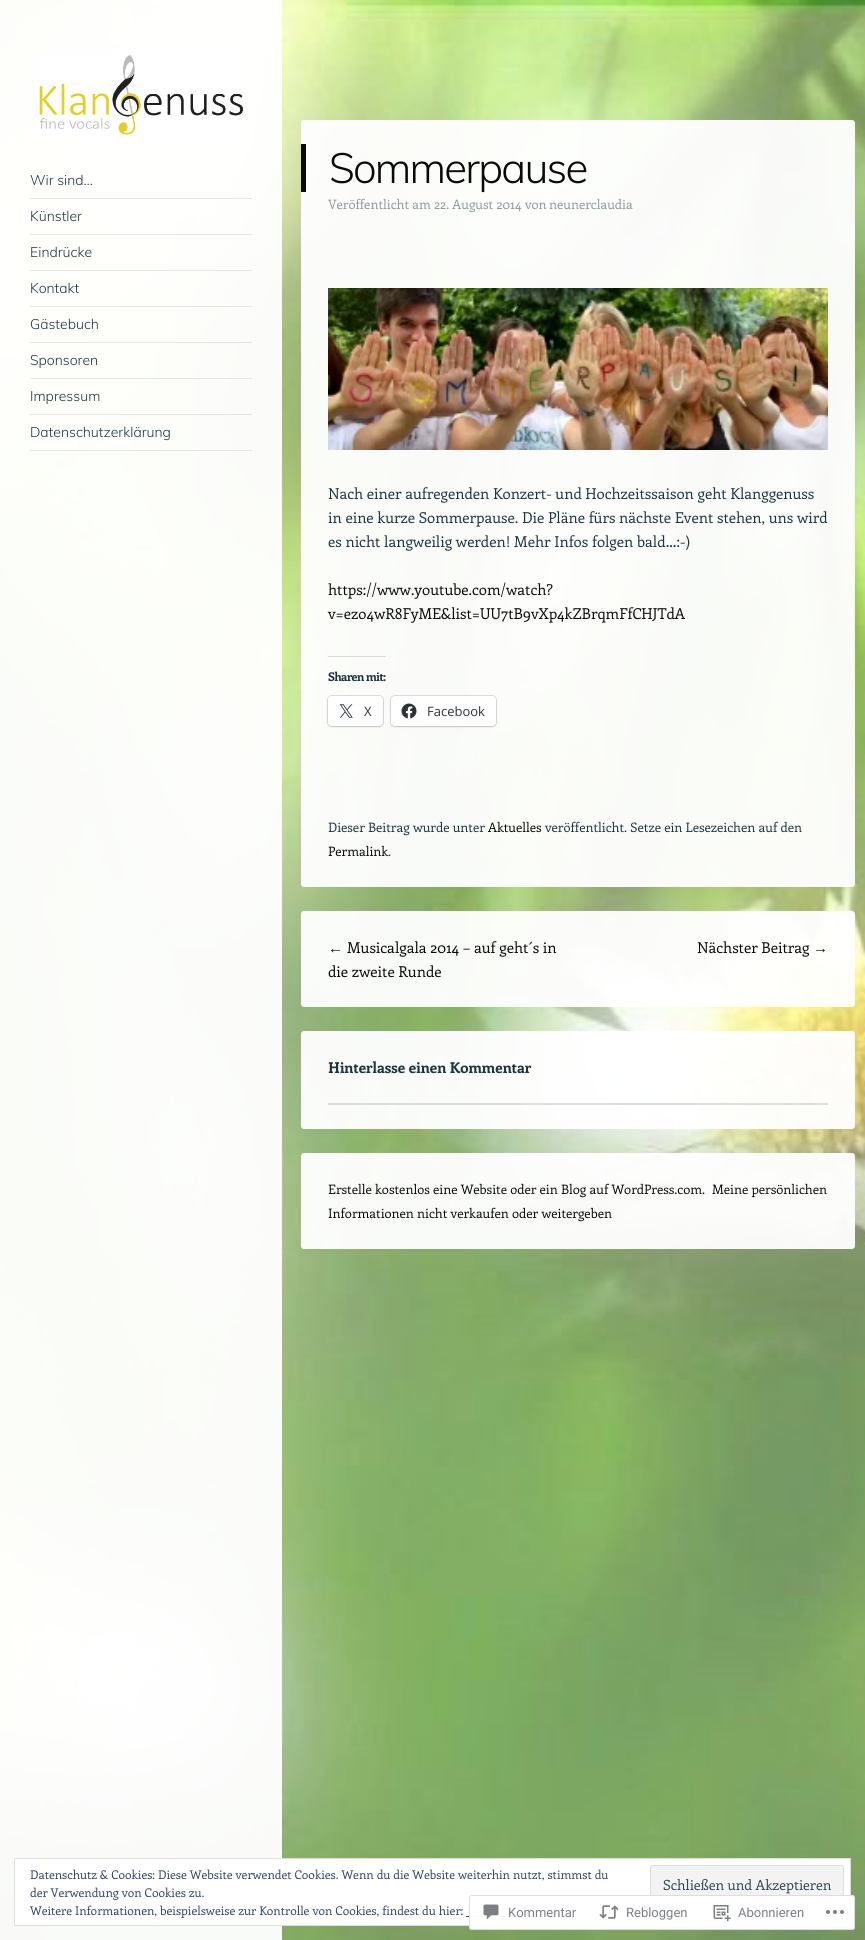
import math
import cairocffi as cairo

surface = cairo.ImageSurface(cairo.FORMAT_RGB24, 865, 1940)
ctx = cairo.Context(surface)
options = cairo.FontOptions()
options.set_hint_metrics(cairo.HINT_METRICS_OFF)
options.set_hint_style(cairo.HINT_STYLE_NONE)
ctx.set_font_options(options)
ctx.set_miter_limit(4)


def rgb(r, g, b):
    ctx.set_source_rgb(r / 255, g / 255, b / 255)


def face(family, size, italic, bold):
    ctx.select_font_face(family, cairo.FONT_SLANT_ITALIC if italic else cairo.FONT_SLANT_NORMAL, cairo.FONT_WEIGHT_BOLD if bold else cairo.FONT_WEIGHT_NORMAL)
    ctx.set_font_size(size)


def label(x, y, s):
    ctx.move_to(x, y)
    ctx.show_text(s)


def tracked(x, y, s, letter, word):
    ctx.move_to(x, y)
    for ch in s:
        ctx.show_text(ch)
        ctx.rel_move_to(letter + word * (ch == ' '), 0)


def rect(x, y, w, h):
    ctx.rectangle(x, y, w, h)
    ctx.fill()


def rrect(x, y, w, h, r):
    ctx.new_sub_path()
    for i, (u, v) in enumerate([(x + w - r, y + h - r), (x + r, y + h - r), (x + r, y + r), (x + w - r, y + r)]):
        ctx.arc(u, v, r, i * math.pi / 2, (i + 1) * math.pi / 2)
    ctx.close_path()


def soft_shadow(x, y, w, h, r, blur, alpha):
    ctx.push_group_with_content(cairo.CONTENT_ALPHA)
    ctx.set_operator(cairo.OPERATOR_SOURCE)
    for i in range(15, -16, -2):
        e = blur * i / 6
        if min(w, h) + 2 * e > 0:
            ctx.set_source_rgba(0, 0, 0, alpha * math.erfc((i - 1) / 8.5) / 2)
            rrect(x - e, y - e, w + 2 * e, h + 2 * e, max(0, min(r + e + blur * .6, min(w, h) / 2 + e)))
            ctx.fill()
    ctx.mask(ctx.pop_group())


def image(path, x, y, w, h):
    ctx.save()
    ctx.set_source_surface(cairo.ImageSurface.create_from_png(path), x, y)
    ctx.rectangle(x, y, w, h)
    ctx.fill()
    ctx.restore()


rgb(255, 255, 255)
ctx.paint()
image('image0.png', 0, 0, 865, 1940)
ctx.set_source_rgba(1, 1, 1, 0.95)
rect(0, 0, 282, 1940)
rrect(301, 120, 554, 767, 3)
ctx.fill()
rgb(10, 10, 10)
rect(301, 144, 5, 48)
face('Muli Light', 42, 0, 0)
tracked(329, 183, 'Sommerpause', -1.75, 0)
face('Enriqueta', 13, 0, 0)
rgb(138, 153, 157)
label(328, 209, 'Veröffentlicht am')
label(434, 209, '22. August 2014')
label(525, 209, 'von')
label(549, 209, 'neunerclaudia')
image('image1.png', 328, 288, 500, 162)
face('Enriqueta', 15, 0, 0)
rgb(26, 53, 64)
label(328, 499, 'Nach einer aufregenden Konzert- und Hochzeitssaison geht Klanggenuss')
label(328, 523, 'in eine kurze Sommerpause. Die Pläne fürs nächste Event stehen, uns wird')
label(328, 547, 'es nicht langweilig werden! Mehr Infos folgen bald…:-)')
rgb(10, 10, 10)
label(328, 595, 'https://www.youtube.com/watch?')
label(328, 619, 'v=ezo4wR8FyME&list=UU7tB9vXp4kZBrqmFfCHJTdA')
rgb(220, 220, 222)
rect(328, 656, 58, 1)
face('Enriqueta', 12, 0, 1)
rgb(26, 53, 64)
tracked(328, 681, 'Sharen mit:', -0.5, 0)
rrect(327.5, 695.5, 56, 31, 4.5)
rgb(221, 222, 219)
ctx.set_line_width(1)
ctx.stroke()
rgb(0, 0, 0)
soft_shadow(328, 697, 55, 30, 4, 1, 0.12)
rgb(255, 255, 255)
rrect(328, 696, 55, 30, 4)
ctx.fill()
image('image2.png', 339, 704, 14, 14)
face('Open Sans', 13, 0, 0)
rgb(44, 51, 56)
label(364, 716, 'X')
rrect(390.5, 695.5, 106, 31, 4.5)
ctx.set_source_rgba(0, 0, 0, 0.12)
ctx.stroke()
rgb(0, 0, 0)
soft_shadow(391, 697, 105, 30, 4, 1, 0.12)
rgb(255, 255, 255)
rrect(391, 696, 105, 30, 4)
ctx.fill()
image('image3.png', 401, 703, 16, 16)
rgb(44, 51, 56)
label(427, 716, 'Facebook')
face('Enriqueta', 13, 0, 0)
rgb(26, 53, 64)
label(328, 832, 'Dieser Beitrag wurde unter')
rgb(10, 10, 10)
label(488, 832, 'Aktuelles')
rgb(26, 53, 64)
label(545, 832, 'veröffentlicht. Setze ein Lesezeichen auf den')
rgb(10, 10, 10)
label(328, 856, 'Permalink')
rgb(26, 53, 64)
label(388, 856, '.')
ctx.set_source_rgba(1, 1, 1, 0.95)
rrect(301, 911, 554, 96, 3)
ctx.fill()
face('Liberation Serif', 15, 0, 0)
rgb(10, 10, 10)
label(328, 953, '←')
face('Enriqueta', 15, 0, 0)
label(347, 953, 'Musicalgala 2014 – auf geht´s in')
label(328, 977, 'die zweite Runde')
label(697, 953, 'Nächster Beitrag')
face('Liberation Serif', 15, 0, 0)
label(813, 953, '→')
ctx.set_source_rgba(1, 1, 1, 0.95)
rrect(301, 1031, 554, 98, 3)
ctx.fill()
face('Enriqueta', 15, 0, 1)
rgb(26, 53, 64)
label(328, 1073, 'Hinterlasse einen Kommentar')
rgb(220, 220, 222)
rect(328, 1103, 500, 2)
image('image4.png', 39, 55, 204, 82)
rgb(229, 229, 229)
rect(30, 198, 222, 1)
face('Muli Light', 14, 0, 0)
rgb(26, 53, 64)
label(30, 185, 'Wir sind…')
rgb(229, 229, 229)
rect(30, 234, 222, 1)
rgb(26, 53, 64)
label(30, 221, 'Künstler')
rgb(229, 229, 229)
rect(30, 270, 222, 1)
rgb(26, 53, 64)
label(30, 257, 'Eindrücke')
rgb(229, 229, 229)
rect(30, 306, 222, 1)
rgb(26, 53, 64)
label(30, 293, 'Kontakt')
rgb(229, 229, 229)
rect(30, 342, 222, 1)
rgb(26, 53, 64)
label(30, 329, 'Gästebuch')
rgb(229, 229, 229)
rect(30, 378, 222, 1)
rgb(26, 53, 64)
label(30, 365, 'Sponsoren')
rgb(229, 229, 229)
rect(30, 414, 222, 1)
rgb(26, 53, 64)
label(30, 401, 'Impressum')
rgb(229, 229, 229)
rect(30, 450, 222, 1)
rgb(26, 53, 64)
label(30, 437, 'Datenschutzerklärung')
ctx.set_source_rgba(1, 1, 1, 0.95)
rrect(301, 1153, 554, 96, 3)
ctx.fill()
face('Enriqueta', 13, 0, 0)
rgb(10, 10, 10)
label(328, 1194, 'Erstelle kostenlos eine Website oder ein Blog auf WordPress.com.')
label(712, 1194, 'Meine persönlichen')
label(328, 1218, 'Informationen nicht verkaufen oder weitergeben')
rgb(255, 255, 255)
ctx.rectangle(14.5, 1858.5, 836, 67)
ctx.fill_preserve()
rgb(222, 222, 222)
ctx.stroke()
face('Enriqueta', 12, 0, 0)
rgb(46, 68, 103)
label(30, 1879, 'Datenschutz & Cookies: Diese Website verwendet Cookies. Wenn du die Website weiterhin nutzt, stimmst du')
label(30, 1897, 'der Verwendung von Cookies zu.')
rgb(243, 243, 243)
rrect(650.5, 1865.5, 193, 38, 2.5)
ctx.fill_preserve()
rgb(222, 222, 222)
ctx.stroke()
face('Enriqueta', 14, 0, 0)
rgb(46, 68, 83)
label(663, 1890, 'Schließen und Akzeptieren')
face('Enriqueta', 12, 0, 0)
rgb(46, 68, 103)
label(30, 1915, 'Weitere Informationen, beispielsweise zur Kontrolle von Cookies, findest du hier:')
rect(466, 1916, 93, 1)
ctx.set_source_rgba(1, 1, 1, 0.98)
rrect(469, 1895, 386, 35, 3)
ctx.fill()
rrect(469.5, 1895.5, 385, 34, 2.5)
ctx.set_source_rgba(0.863, 0.863, 0.871, 0.98)
ctx.stroke()
image('image5.png', 483, 1904, 16, 16)
face('Roboto', 13, 0, 0)
rgb(123, 127, 132)
label(508, 1917, 'Kommentar')
image('image6.png', 599, 1905, 20, 14)
label(626, 1917, 'Rebloggen')
image('image7.png', 713, 1905, 18, 17)
label(738, 1917, 'Abonnieren')
image('image8.png', 826, 1910, 18, 4)
surface.write_to_png('render.png')
